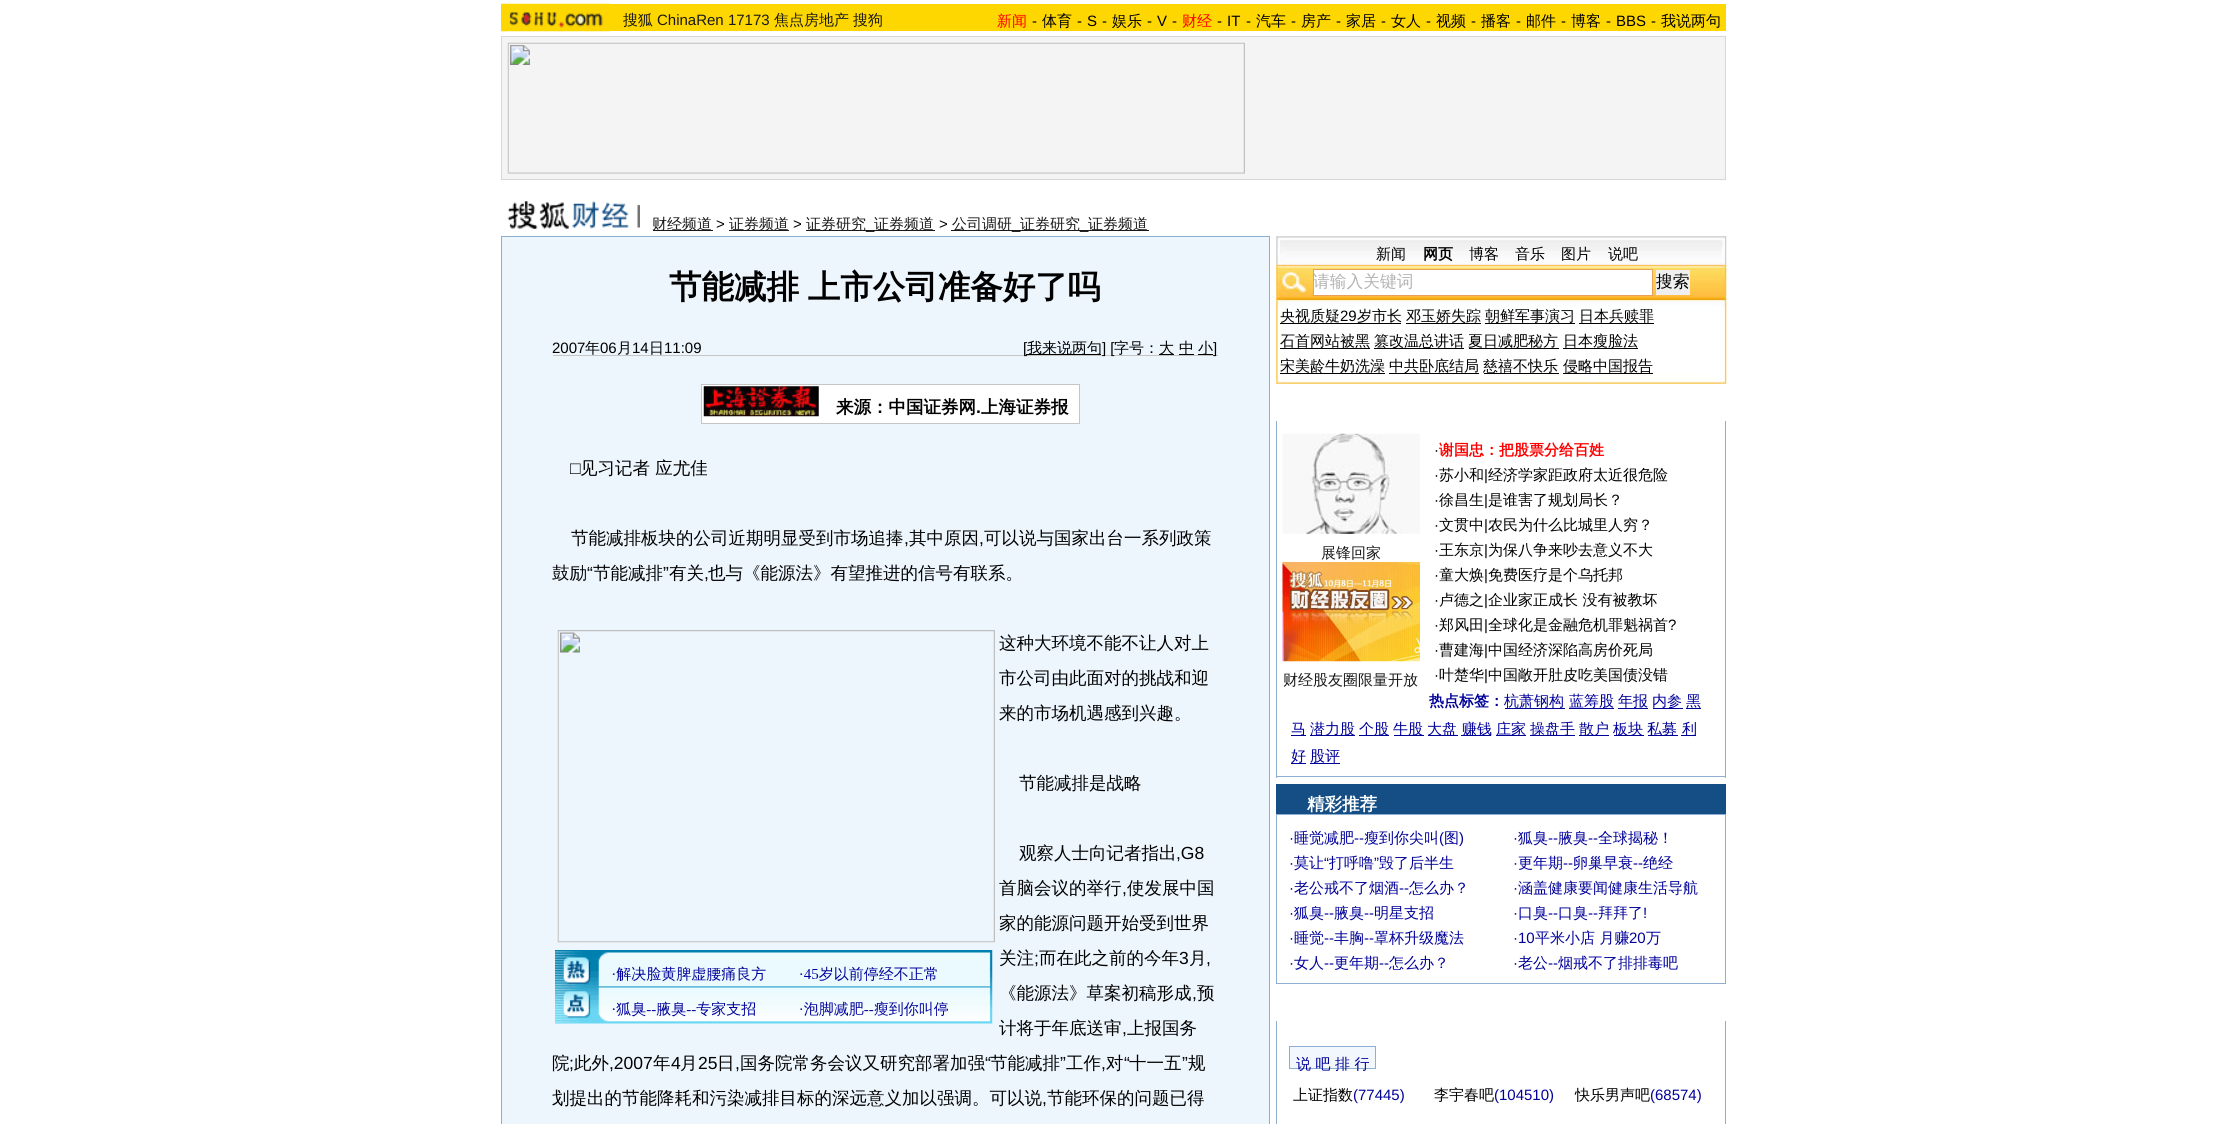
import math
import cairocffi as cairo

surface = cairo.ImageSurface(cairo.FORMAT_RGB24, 2226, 1124)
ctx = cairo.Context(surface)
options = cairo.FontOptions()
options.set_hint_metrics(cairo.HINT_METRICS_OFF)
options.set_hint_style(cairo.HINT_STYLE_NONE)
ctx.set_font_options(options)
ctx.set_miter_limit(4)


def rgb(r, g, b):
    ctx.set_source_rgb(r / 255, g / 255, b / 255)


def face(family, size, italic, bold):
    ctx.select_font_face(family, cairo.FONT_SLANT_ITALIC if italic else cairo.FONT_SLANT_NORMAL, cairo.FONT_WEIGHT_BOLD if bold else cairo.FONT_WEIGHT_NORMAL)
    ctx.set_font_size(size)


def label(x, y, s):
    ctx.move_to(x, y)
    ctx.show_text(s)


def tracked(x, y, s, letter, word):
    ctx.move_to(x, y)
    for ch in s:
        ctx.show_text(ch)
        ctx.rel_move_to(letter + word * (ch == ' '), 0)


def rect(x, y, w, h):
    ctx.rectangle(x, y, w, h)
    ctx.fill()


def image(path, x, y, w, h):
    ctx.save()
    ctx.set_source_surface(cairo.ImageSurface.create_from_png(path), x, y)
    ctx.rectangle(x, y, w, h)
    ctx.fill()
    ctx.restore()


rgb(255, 255, 255)
ctx.paint()
rgb(255, 215, 0)
rect(501, 4, 1225, 27)
image('image0.png', 501, 3, 109, 29)
face('WenQuanYi Zen Hei Medium', 15, 0, 0)
rgb(25, 25, 25)
label(623, 25, '搜狐')
face('Liberation Sans', 15, 0, 0)
label(657, 25, 'ChinaRen 17173')
face('WenQuanYi Zen Hei Medium', 15, 0, 0)
label(774, 25, '焦点房地产')
label(853, 25, '搜狗')
rgb(255, 0, 0)
label(997, 26, '新闻')
face('Liberation Sans', 15, 0, 0)
rgb(0, 0, 0)
label(1032, 26, '-')
face('WenQuanYi Zen Hei Medium', 15, 0, 0)
label(1042, 26, '体育')
face('Liberation Sans', 15, 0, 0)
label(1077, 26, '-')
label(1087, 26, 'S')
label(1102, 26, '-')
face('WenQuanYi Zen Hei Medium', 15, 0, 0)
label(1112, 26, '娱乐')
face('Liberation Sans', 15, 0, 0)
label(1147, 26, '-')
label(1157, 26, 'V')
label(1172, 26, '-')
face('WenQuanYi Zen Hei Medium', 15, 0, 0)
rgb(255, 0, 0)
label(1182, 26, '财经')
face('Liberation Sans', 15, 0, 0)
rgb(0, 0, 0)
label(1217, 26, '-')
label(1227, 26, 'IT')
label(1246, 26, '-')
face('WenQuanYi Zen Hei Medium', 15, 0, 0)
label(1256, 26, '汽车')
face('Liberation Sans', 15, 0, 0)
label(1291, 26, '-')
face('WenQuanYi Zen Hei Medium', 15, 0, 0)
label(1301, 26, '房产')
face('Liberation Sans', 15, 0, 0)
label(1336, 26, '-')
face('WenQuanYi Zen Hei Medium', 15, 0, 0)
label(1346, 26, '家居')
face('Liberation Sans', 15, 0, 0)
label(1381, 26, '-')
face('WenQuanYi Zen Hei Medium', 15, 0, 0)
label(1391, 26, '女人')
face('Liberation Sans', 15, 0, 0)
label(1426, 26, '-')
face('WenQuanYi Zen Hei Medium', 15, 0, 0)
label(1436, 26, '视频')
face('Liberation Sans', 15, 0, 0)
label(1471, 26, '-')
face('WenQuanYi Zen Hei Medium', 15, 0, 0)
label(1481, 26, '播客')
face('Liberation Sans', 15, 0, 0)
label(1516, 26, '-')
face('WenQuanYi Zen Hei Medium', 15, 0, 0)
label(1526, 26, '邮件')
face('Liberation Sans', 15, 0, 0)
label(1561, 26, '-')
face('WenQuanYi Zen Hei Medium', 15, 0, 0)
label(1571, 26, '博客')
face('Liberation Sans', 15, 0, 0)
label(1606, 26, '-')
label(1616, 26, 'BBS')
label(1651, 26, '-')
face('WenQuanYi Zen Hei Medium', 15, 0, 0)
label(1661, 26, '我说两句')
rgb(244, 244, 244)
ctx.rectangle(501.5, 36.5, 1224, 143)
ctx.fill_preserve()
rgb(215, 215, 215)
ctx.set_line_width(1)
ctx.stroke()
image('image1.png', 507, 42, 738, 132)
image('image2.png', 507, 201, 133, 28)
rgb(25, 25, 25)
rect(653, 230, 60, 1)
label(652, 229, '财经频道')
face('Liberation Sans', 15, 0, 0)
rgb(0, 0, 0)
label(716, 229, '>')
rgb(25, 25, 25)
rect(729, 230, 60, 1)
face('WenQuanYi Zen Hei Medium', 15, 0, 0)
label(729, 229, '证券频道')
face('Liberation Sans', 15, 0, 0)
rgb(0, 0, 0)
label(793, 229, '>')
rgb(25, 25, 25)
rect(806, 230, 129, 1)
face('WenQuanYi Zen Hei Medium', 15, 0, 0)
label(806, 229, '证券研究')
face('Liberation Sans', 15, 0, 0)
label(866, 229, '_')
face('WenQuanYi Zen Hei Medium', 15, 0, 0)
label(874, 229, '证券频道')
face('Liberation Sans', 15, 0, 0)
rgb(0, 0, 0)
label(939, 229, '>')
rgb(25, 25, 25)
rect(951, 230, 198, 1)
face('WenQuanYi Zen Hei Medium', 15, 0, 0)
label(952, 229, '公司调研')
label(1020, 229, '证券研究')
face('Liberation Sans', 15, 0, 0)
label(1080, 229, '_')
face('WenQuanYi Zen Hei Medium', 15, 0, 0)
label(1088, 229, '证券频道')
face('Liberation Sans', 15, 0, 0)
label(1012, 229, '_')
rgb(237, 245, 253)
ctx.rectangle(501.5, 236.5, 768, 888)
ctx.fill_preserve()
rgb(143, 175, 210)
ctx.stroke()
face('WenQuanYi Zen Hei', 32.5, 0, 1)
rgb(0, 0, 0)
tracked(669, 298, '节能减排 上市公司准备好了吗', 0, -1)
rgb(197, 197, 197)
rect(553, 355, 665, 1)
face('Liberation Sans', 15, 0, 0)
rgb(0, 0, 0)
label(552, 353, '2007')
face('WenQuanYi Zen Hei Medium', 15, 0, 0)
label(585, 353, '年')
face('Liberation Sans', 15, 0, 0)
label(600, 353, '06')
face('WenQuanYi Zen Hei Medium', 15, 0, 0)
label(617, 353, '月')
face('Liberation Sans', 15, 0, 0)
label(632, 353, '14')
face('WenQuanYi Zen Hei Medium', 15, 0, 0)
label(649, 353, '日')
face('Liberation Sans', 15, 0, 0)
label(664, 353, '11:09')
label(1023, 353, '[')
rect(1026, 354, 75, 1)
face('WenQuanYi Zen Hei Medium', 15, 0, 0)
label(1027, 353, '我来说两句')
face('Liberation Sans', 15, 0, 0)
label(1102, 353, '] [')
face('WenQuanYi Zen Hei Medium', 15, 0, 0)
label(1114, 353, '字号：')
rect(1159, 354, 15, 1)
label(1159, 353, '大')
rect(1179, 354, 15, 1)
label(1179, 353, '中')
rect(1198, 354, 15, 1)
label(1198, 353, '小')
face('Liberation Sans', 15, 0, 0)
label(1213, 353, ']')
rgb(255, 255, 255)
ctx.rectangle(701.5, 384.5, 378, 39)
ctx.fill_preserve()
rgb(197, 197, 197)
ctx.stroke()
image('image3.png', 703, 386, 116, 31)
face('WenQuanYi Zen Hei', 17.5, 0, 1)
rgb(0, 0, 0)
label(836, 413, '来源：中国证券网')
face('Liberation Sans', 17.5, 0, 1)
label(976, 413, '.')
face('WenQuanYi Zen Hei', 17.5, 0, 1)
label(981, 413, '上海证券报')
face('Liberation Sans', 17.5, 0, 0)
label(570, 474, '□')
face('WenQuanYi Zen Hei Medium', 17.5, 0, 0)
label(580, 474, '见习记者 应尤佳')
label(571, 544, '节能减排板块的公司近期明显受到市场追捧')
face('Liberation Sans', 17.5, 0, 0)
label(904, 544, ',')
face('WenQuanYi Zen Hei Medium', 17.5, 0, 0)
label(909, 544, '其中原因')
face('Liberation Sans', 17.5, 0, 0)
label(979, 544, ',')
face('WenQuanYi Zen Hei Medium', 17.5, 0, 0)
label(984, 544, '可以说与国家出台一系列政策')
label(552, 579, '鼓励')
face('Liberation Sans', 17.5, 0, 0)
label(587, 579, '“')
face('WenQuanYi Zen Hei Medium', 17.5, 0, 0)
label(593, 579, '节能减排')
face('Liberation Sans', 17.5, 0, 0)
label(663, 579, '”')
face('WenQuanYi Zen Hei Medium', 17.5, 0, 0)
label(669, 579, '有关')
label(708, 579, '也与《能源法》有望推进的信号有联系。')
face('Liberation Sans', 17.5, 0, 0)
label(704, 579, ',')
image('image4.png', 557, 630, 438, 313)
image('image5.png', 555, 950, 438, 74)
face('WenQuanYi Zen Hei Medium', 17.5, 0, 0)
label(999, 649, '这种大环境不能不让人对上')
label(999, 684, '市公司由此面对的挑战和迎')
label(999, 719, '来的市场机遇感到兴趣。')
label(1019, 789, '节能减排是战略')
label(1019, 859, '观察人士向记者指出')
face('Liberation Sans', 17.5, 0, 0)
label(1176, 859, ',G8')
face('WenQuanYi Zen Hei Medium', 17.5, 0, 0)
label(999, 894, '首脑会议的举行')
face('Liberation Sans', 17.5, 0, 0)
label(1122, 894, ',')
face('WenQuanYi Zen Hei Medium', 17.5, 0, 0)
label(1127, 894, '使发展中国')
label(999, 929, '家的能源问题开始受到世界')
label(999, 964, '关注')
face('Liberation Sans', 17.5, 0, 0)
label(1034, 964, ';')
face('WenQuanYi Zen Hei Medium', 17.5, 0, 0)
label(1039, 964, '而在此之前的今年')
face('Liberation Sans', 17.5, 0, 0)
label(1179, 964, '3')
face('WenQuanYi Zen Hei Medium', 17.5, 0, 0)
label(1189, 964, '月')
face('Liberation Sans', 17.5, 0, 0)
label(1206, 964, ',')
face('WenQuanYi Zen Hei Medium', 17.5, 0, 0)
label(999, 999, '《能源法》草案初稿形成')
face('Liberation Sans', 17.5, 0, 0)
label(1192, 999, ',')
face('WenQuanYi Zen Hei Medium', 17.5, 0, 0)
label(1197, 999, '预')
label(999, 1034, '计将于年底送审')
face('Liberation Sans', 17.5, 0, 0)
label(1122, 1034, ',')
face('WenQuanYi Zen Hei Medium', 17.5, 0, 0)
label(1127, 1034, '上报国务')
label(552, 1069, '院')
label(574, 1069, '此外')
face('Liberation Sans', 17.5, 0, 0)
label(609, 1069, ',2007')
face('WenQuanYi Zen Hei Medium', 17.5, 0, 0)
label(653, 1069, '年')
face('Liberation Sans', 17.5, 0, 0)
label(671, 1069, '4')
face('WenQuanYi Zen Hei Medium', 17.5, 0, 0)
label(680, 1069, '月')
face('Liberation Sans', 17.5, 0, 0)
label(698, 1069, '25')
face('WenQuanYi Zen Hei Medium', 17.5, 0, 0)
label(717, 1069, '日')
label(740, 1069, '国务院常务会议又研究部署加强')
face('Liberation Sans', 17.5, 0, 0)
label(985, 1069, '“')
face('WenQuanYi Zen Hei Medium', 17.5, 0, 0)
label(990, 1069, '节能减排')
face('Liberation Sans', 17.5, 0, 0)
label(1060, 1069, '”')
face('WenQuanYi Zen Hei Medium', 17.5, 0, 0)
label(1066, 1069, '工作')
label(1106, 1069, '对')
face('Liberation Sans', 17.5, 0, 0)
label(1124, 1069, '“')
face('WenQuanYi Zen Hei Medium', 17.5, 0, 0)
label(1129, 1069, '十一五')
face('Liberation Sans', 17.5, 0, 0)
label(1182, 1069, '”')
face('WenQuanYi Zen Hei Medium', 17.5, 0, 0)
label(1188, 1069, '规')
face('Liberation Sans', 17.5, 0, 0)
label(569, 1069, ';')
label(735, 1069, ',')
label(1101, 1069, ',')
face('WenQuanYi Zen Hei Medium', 17.5, 0, 0)
label(552, 1104, '划提出的节能降耗和污染减排目标的深远意义加以强调。可以说')
face('Liberation Sans', 17.5, 0, 0)
label(1042, 1104, ',')
face('WenQuanYi Zen Hei Medium', 17.5, 0, 0)
label(1047, 1104, '节能环保的问题已得')
image('image6.png', 1276, 236, 451, 148)
face('WenQuanYi Zen Hei Medium', 15, 0, 0)
label(1376, 259, '新闻')
face('WenQuanYi Zen Hei', 15, 0, 1)
label(1423, 259, '网页')
face('WenQuanYi Zen Hei Medium', 15, 0, 0)
label(1469, 259, '博客')
label(1515, 259, '音乐')
label(1561, 259, '图片')
label(1608, 259, '说吧')
rgb(255, 255, 255)
ctx.rectangle(1313.5, 269.5, 339, 26)
ctx.fill_preserve()
rgb(232, 159, 87)
ctx.stroke()
ctx.save()
ctx.rectangle(1314, 271, 337, 23)
ctx.clip()
face('WenQuanYi Zen Hei Medium', 16.75, 0, 0)
rgb(179, 179, 179)
label(1313, 287, '请输入关键词')
ctx.restore()
rgb(239, 239, 239)
rect(1656, 270, 34, 25)
face('WenQuanYi Zen Hei Medium', 16.75, 0, 0)
rgb(0, 0, 0)
label(1656, 287, '搜索')
face('WenQuanYi Zen Hei Medium', 15, 0, 0)
label(1280, 321, '央视质疑')
face('Liberation Sans', 15, 0, 0)
label(1340, 321, '29')
rect(1280, 323, 121, 1)
face('WenQuanYi Zen Hei Medium', 15, 0, 0)
label(1357, 321, '岁市长')
rect(1406, 323, 75, 1)
label(1406, 321, '邓玉娇失踪')
rect(1485, 323, 90, 1)
label(1485, 321, '朝鲜军事演习')
rect(1579, 323, 75, 1)
label(1579, 321, '日本兵赎罪')
rect(1280, 348, 90, 1)
label(1280, 346, '石首网站被黑')
rect(1374, 348, 90, 1)
label(1374, 346, '篡改温总讲话')
rect(1469, 348, 90, 1)
label(1468, 346, '夏日减肥秘方')
rect(1563, 348, 75, 1)
label(1563, 346, '日本瘦脸法')
rect(1280, 373, 105, 1)
label(1280, 371, '宋美龄牛奶洗澡')
rect(1389, 373, 90, 1)
label(1389, 371, '中共卧底结局')
label(1483, 371, '慈禧不快乐')
rect(1484, 373, 75, 1)
rect(1563, 373, 90, 1)
label(1563, 371, '侵略中国报告')
rgb(143, 175, 210)
rect(1725, 421, 1, 357)
rect(1276, 776, 450, 1)
rect(1276, 421, 1, 357)
image('image7.png', 1282, 433, 138, 101)
rgb(25, 25, 25)
label(1321, 558, '展锋回家')
image('image8.png', 1282, 561, 138, 101)
label(1283, 685, '财经股友圈限量开放')
face('Liberation Sans', 15, 0, 0)
rgb(0, 0, 0)
label(1434, 455, '·')
face('WenQuanYi Zen Hei', 15, 0, 1)
rgb(255, 0, 0)
label(1439, 455, '谢国忠：把股票分给百姓')
face('Liberation Sans', 15, 0, 0)
rgb(0, 0, 0)
label(1434, 480, '·')
face('WenQuanYi Zen Hei Medium', 15, 0, 0)
label(1439, 480, '苏小和')
face('Liberation Sans', 15, 0, 0)
label(1484, 480, '|')
face('WenQuanYi Zen Hei Medium', 15, 0, 0)
label(1488, 480, '经济学家距政府太近很危险')
face('Liberation Sans', 15, 0, 0)
label(1434, 505, '·')
face('WenQuanYi Zen Hei Medium', 15, 0, 0)
label(1439, 505, '徐昌生')
face('Liberation Sans', 15, 0, 0)
label(1484, 505, '|')
face('WenQuanYi Zen Hei Medium', 15, 0, 0)
label(1488, 505, '是谁害了规划局长？')
face('Liberation Sans', 15, 0, 0)
label(1434, 530, '·')
face('WenQuanYi Zen Hei Medium', 15, 0, 0)
label(1439, 530, '文贯中')
face('Liberation Sans', 15, 0, 0)
label(1484, 530, '|')
face('WenQuanYi Zen Hei Medium', 15, 0, 0)
label(1488, 530, '农民为什么比城里人穷？')
face('Liberation Sans', 15, 0, 0)
label(1434, 555, '·')
face('WenQuanYi Zen Hei Medium', 15, 0, 0)
label(1439, 555, '王东京')
face('Liberation Sans', 15, 0, 0)
label(1484, 555, '|')
face('WenQuanYi Zen Hei Medium', 15, 0, 0)
label(1488, 555, '为保八争来吵去意义不大')
face('Liberation Sans', 15, 0, 0)
label(1434, 580, '·')
face('WenQuanYi Zen Hei Medium', 15, 0, 0)
label(1439, 580, '童大焕')
face('Liberation Sans', 15, 0, 0)
label(1484, 580, '|')
face('WenQuanYi Zen Hei Medium', 15, 0, 0)
label(1488, 580, '免费医疗是个乌托邦')
face('Liberation Sans', 15, 0, 0)
label(1434, 605, '·')
face('WenQuanYi Zen Hei Medium', 15, 0, 0)
label(1439, 605, '卢德之')
face('Liberation Sans', 15, 0, 0)
label(1484, 605, '|')
face('WenQuanYi Zen Hei Medium', 15, 0, 0)
label(1488, 605, '企业家正成长 没有被教坏')
face('Liberation Sans', 15, 0, 0)
label(1434, 630, '·')
face('WenQuanYi Zen Hei Medium', 15, 0, 0)
label(1439, 630, '郑风田')
face('Liberation Sans', 15, 0, 0)
label(1484, 630, '|')
face('WenQuanYi Zen Hei Medium', 15, 0, 0)
label(1488, 630, '全球化是金融危机罪魁祸首')
face('Liberation Sans', 15, 0, 0)
label(1668, 630, '?')
label(1434, 655, '·')
face('WenQuanYi Zen Hei Medium', 15, 0, 0)
label(1439, 655, '曹建海')
face('Liberation Sans', 15, 0, 0)
label(1484, 655, '|')
face('WenQuanYi Zen Hei Medium', 15, 0, 0)
label(1488, 655, '中国经济深陷高房价死局')
face('Liberation Sans', 15, 0, 0)
label(1434, 680, '·')
face('WenQuanYi Zen Hei Medium', 15, 0, 0)
label(1439, 680, '叶楚华')
face('Liberation Sans', 15, 0, 0)
label(1484, 680, '|')
face('WenQuanYi Zen Hei Medium', 15, 0, 0)
label(1488, 680, '中国敞开肚皮吃美国债没错')
face('WenQuanYi Zen Hei', 15, 0, 1)
rgb(0, 0, 153)
label(1429, 706, '热点标签：')
rect(1505, 708, 60, 1)
face('WenQuanYi Zen Hei Medium', 15, 0, 0)
label(1504, 706, '杭萧钢构')
rect(1569, 708, 45, 1)
label(1569, 706, '蓝筹股')
rect(1618, 708, 30, 1)
label(1618, 706, '年报')
rect(1653, 708, 30, 1)
label(1652, 706, '内参')
rect(1686, 708, 15, 1)
label(1686, 706, '黑')
rect(1291, 735, 15, 1)
label(1291, 734, '马')
rect(1310, 735, 45, 1)
label(1310, 734, '潜力股')
rect(1359, 735, 30, 1)
label(1359, 734, '个股')
rect(1394, 735, 30, 1)
label(1393, 734, '牛股')
rect(1428, 735, 30, 1)
label(1427, 734, '大盘')
rect(1461, 735, 30, 1)
label(1462, 734, '赚钱')
rect(1496, 735, 30, 1)
label(1496, 734, '庄家')
rect(1530, 735, 45, 1)
label(1530, 734, '操盘手')
rect(1579, 735, 30, 1)
label(1579, 734, '散户')
rect(1614, 735, 30, 1)
label(1613, 734, '板块')
rect(1648, 735, 30, 1)
label(1647, 734, '私募')
rect(1681, 735, 15, 1)
label(1682, 734, '利')
rect(1291, 763, 15, 1)
label(1291, 761, '好')
rect(1310, 763, 30, 1)
label(1310, 761, '股评')
rgb(20, 78, 132)
rect(1276, 784, 450, 30)
face('WenQuanYi Zen Hei', 17.5, 0, 1)
rgb(255, 255, 255)
label(1307, 810, '精彩推荐')
ctx.rectangle(1276.5, 814.5, 449, 169)
rgb(143, 175, 210)
ctx.stroke()
face('Liberation Sans', 15, 0, 0)
rgb(0, 0, 153)
label(1289, 843, '·')
face('WenQuanYi Zen Hei Medium', 15, 0, 0)
label(1294, 843, '睡觉减肥')
face('Liberation Sans', 15, 0, 0)
label(1354, 843, '--')
face('WenQuanYi Zen Hei Medium', 15, 0, 0)
label(1364, 843, '瘦到你尖叫')
face('Liberation Sans', 15, 0, 0)
label(1439, 843, '(')
face('WenQuanYi Zen Hei Medium', 15, 0, 0)
label(1444, 843, '图')
face('Liberation Sans', 15, 0, 0)
label(1459, 843, ')')
label(1513, 843, '·')
face('WenQuanYi Zen Hei Medium', 15, 0, 0)
label(1518, 843, '狐臭')
face('Liberation Sans', 15, 0, 0)
label(1548, 843, '--')
face('WenQuanYi Zen Hei Medium', 15, 0, 0)
label(1558, 843, '腋臭')
face('Liberation Sans', 15, 0, 0)
label(1588, 843, '--')
face('WenQuanYi Zen Hei Medium', 15, 0, 0)
label(1598, 843, '全球揭秘！')
label(1294, 868, '莫让')
face('Liberation Sans', 15, 0, 0)
label(1324, 868, '“')
face('WenQuanYi Zen Hei Medium', 15, 0, 0)
label(1329, 868, '打呼噜')
face('Liberation Sans', 15, 0, 0)
label(1374, 868, '”')
face('WenQuanYi Zen Hei Medium', 15, 0, 0)
label(1379, 868, '毁了后半生')
face('Liberation Sans', 15, 0, 0)
label(1289, 868, '·')
label(1513, 868, '·')
face('WenQuanYi Zen Hei Medium', 15, 0, 0)
label(1518, 868, '更年期')
face('Liberation Sans', 15, 0, 0)
label(1563, 868, '--')
face('WenQuanYi Zen Hei Medium', 15, 0, 0)
label(1573, 868, '卵巢早衰')
face('Liberation Sans', 15, 0, 0)
label(1633, 868, '--')
face('WenQuanYi Zen Hei Medium', 15, 0, 0)
label(1643, 868, '绝经')
face('Liberation Sans', 15, 0, 0)
label(1289, 893, '·')
face('WenQuanYi Zen Hei Medium', 15, 0, 0)
label(1294, 893, '老公戒不了烟酒')
face('Liberation Sans', 15, 0, 0)
label(1399, 893, '--')
face('WenQuanYi Zen Hei Medium', 15, 0, 0)
label(1409, 893, '怎么办？')
face('Liberation Sans', 15, 0, 0)
label(1513, 893, '·')
face('WenQuanYi Zen Hei Medium', 15, 0, 0)
label(1518, 893, '涵盖健康要闻健康生活导航')
face('Liberation Sans', 15, 0, 0)
label(1289, 918, '·')
face('WenQuanYi Zen Hei Medium', 15, 0, 0)
label(1294, 918, '狐臭')
face('Liberation Sans', 15, 0, 0)
label(1324, 918, '--')
face('WenQuanYi Zen Hei Medium', 15, 0, 0)
label(1334, 918, '腋臭')
face('Liberation Sans', 15, 0, 0)
label(1364, 918, '--')
face('WenQuanYi Zen Hei Medium', 15, 0, 0)
label(1374, 918, '明星支招')
face('Liberation Sans', 15, 0, 0)
label(1513, 918, '·')
face('WenQuanYi Zen Hei Medium', 15, 0, 0)
label(1518, 918, '口臭')
face('Liberation Sans', 15, 0, 0)
label(1548, 918, '--')
face('WenQuanYi Zen Hei Medium', 15, 0, 0)
label(1558, 918, '口臭')
face('Liberation Sans', 15, 0, 0)
label(1588, 918, '--')
face('WenQuanYi Zen Hei Medium', 15, 0, 0)
label(1598, 918, '拜拜了')
face('Liberation Sans', 15, 0, 0)
label(1643, 918, '!')
label(1289, 943, '·')
face('WenQuanYi Zen Hei Medium', 15, 0, 0)
label(1294, 943, '睡觉')
face('Liberation Sans', 15, 0, 0)
label(1324, 943, '--')
face('WenQuanYi Zen Hei Medium', 15, 0, 0)
label(1334, 943, '丰胸')
face('Liberation Sans', 15, 0, 0)
label(1364, 943, '--')
face('WenQuanYi Zen Hei Medium', 15, 0, 0)
label(1374, 943, '罩杯升级魔法')
face('Liberation Sans', 15, 0, 0)
label(1513, 943, '·10')
face('WenQuanYi Zen Hei Medium', 15, 0, 0)
label(1535, 943, '平米小店 月赚')
face('Liberation Sans', 15, 0, 0)
label(1629, 943, '20')
face('WenQuanYi Zen Hei Medium', 15, 0, 0)
label(1646, 943, '万')
face('Liberation Sans', 15, 0, 0)
label(1289, 968, '·')
face('WenQuanYi Zen Hei Medium', 15, 0, 0)
label(1294, 968, '女人')
face('Liberation Sans', 15, 0, 0)
label(1324, 968, '--')
face('WenQuanYi Zen Hei Medium', 15, 0, 0)
label(1334, 968, '更年期')
face('Liberation Sans', 15, 0, 0)
label(1379, 968, '--')
face('WenQuanYi Zen Hei Medium', 15, 0, 0)
label(1389, 968, '怎么办？')
face('Liberation Sans', 15, 0, 0)
label(1513, 968, '·')
face('WenQuanYi Zen Hei Medium', 15, 0, 0)
label(1518, 968, '老公')
face('Liberation Sans', 15, 0, 0)
label(1548, 968, '--')
face('WenQuanYi Zen Hei Medium', 15, 0, 0)
label(1558, 968, '烟戒不了排排毒吧')
rgb(143, 175, 210)
rect(1725, 1021, 1, 103)
rect(1276, 1021, 1, 103)
rgb(241, 247, 253)
ctx.rectangle(1289.5, 1046.5, 86, 22)
ctx.fill_preserve()
rgb(143, 175, 210)
ctx.stroke()
rgb(0, 0, 153)
label(1296, 1069, '说 吧 排 行')
rgb(0, 0, 0)
label(1293, 1100, '上证指数')
face('Liberation Sans', 15, 0, 0)
rgb(0, 0, 153)
label(1353, 1100, '(77445)')
face('WenQuanYi Zen Hei Medium', 15, 0, 0)
rgb(0, 0, 0)
label(1434, 1100, '李宇春吧')
face('Liberation Sans', 15, 0, 0)
rgb(0, 0, 153)
label(1494, 1100, '(104510)')
face('WenQuanYi Zen Hei Medium', 15, 0, 0)
rgb(0, 0, 0)
label(1575, 1100, '快乐男声吧')
face('Liberation Sans', 15, 0, 0)
rgb(0, 0, 153)
label(1650, 1100, '(68574)')
surface.write_to_png('render.png')
